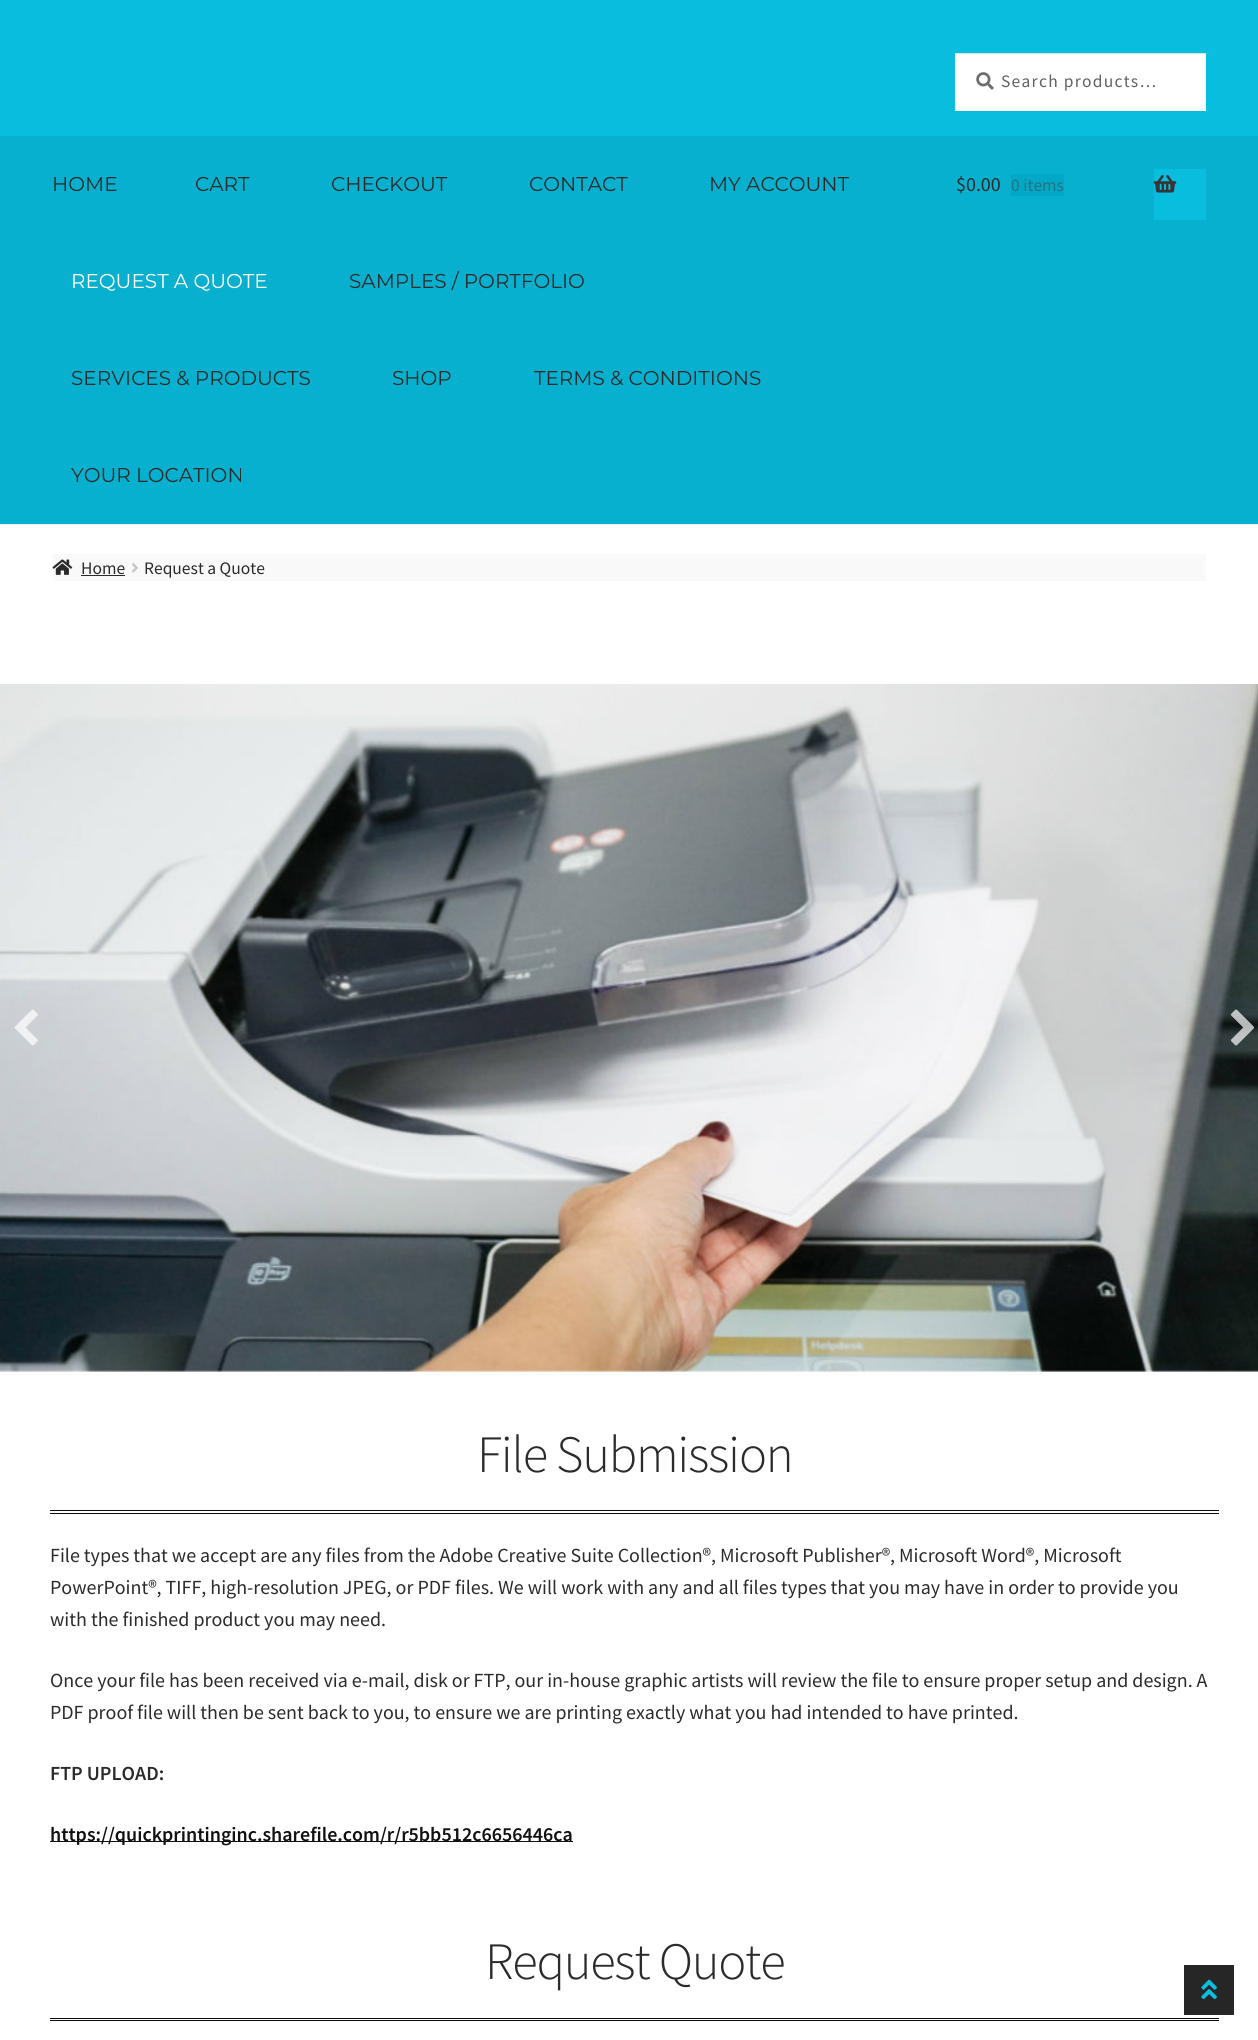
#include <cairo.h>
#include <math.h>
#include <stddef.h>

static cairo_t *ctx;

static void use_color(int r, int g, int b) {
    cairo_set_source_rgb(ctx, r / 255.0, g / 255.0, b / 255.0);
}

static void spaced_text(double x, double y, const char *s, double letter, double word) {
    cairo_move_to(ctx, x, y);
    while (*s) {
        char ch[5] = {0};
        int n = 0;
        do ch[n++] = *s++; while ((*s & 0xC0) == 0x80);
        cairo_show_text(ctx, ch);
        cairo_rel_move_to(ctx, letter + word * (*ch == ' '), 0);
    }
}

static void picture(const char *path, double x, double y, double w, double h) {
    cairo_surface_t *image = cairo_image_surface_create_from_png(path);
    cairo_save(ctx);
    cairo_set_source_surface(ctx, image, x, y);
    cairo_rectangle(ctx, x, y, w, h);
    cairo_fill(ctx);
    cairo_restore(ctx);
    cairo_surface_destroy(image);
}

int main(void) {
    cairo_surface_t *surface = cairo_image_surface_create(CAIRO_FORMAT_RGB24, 1258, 2040);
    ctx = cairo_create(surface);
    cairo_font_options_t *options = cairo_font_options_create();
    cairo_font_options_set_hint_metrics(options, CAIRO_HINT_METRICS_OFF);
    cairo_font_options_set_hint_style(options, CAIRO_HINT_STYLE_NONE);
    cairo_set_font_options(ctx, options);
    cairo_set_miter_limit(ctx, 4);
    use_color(255, 255, 255);
    cairo_paint(ctx);
    use_color(8, 189, 221);
    cairo_rectangle(ctx, 0, 0, 1258, 136);
    cairo_fill(ctx);
    use_color(240, 240, 240);
    cairo_rectangle(ctx, 0, 524, 1258, 1);
    cairo_fill(ctx);
    use_color(255, 255, 255);
    cairo_rectangle(ctx, 955, 54, 251, 57);
    cairo_fill(ctx);
    picture("img1.png", 976, 72, 18, 18);
    use_color(223, 223, 223);
    cairo_rectangle(ctx, 955, 53, 251, 1);
    cairo_fill(ctx);
    cairo_select_font_face(ctx, "Source Sans Pro", CAIRO_FONT_SLANT_NORMAL, CAIRO_FONT_WEIGHT_NORMAL);
    cairo_set_font_size(ctx, 17.5);
    use_color(97, 97, 97);
    spaced_text(1001, 87, "Search products…", 1.25, 0);
    use_color(7, 176, 206);
    cairo_rectangle(ctx, 0, 136, 1258, 388);
    cairo_fill(ctx);
    cairo_select_font_face(ctx, "Montserrat", CAIRO_FONT_SLANT_NORMAL, CAIRO_FONT_WEIGHT_NORMAL);
    cairo_set_font_size(ctx, 20);
    use_color(43, 43, 43);
    cairo_move_to(ctx, 52, 191);
    cairo_show_text(ctx, "HOME");
    cairo_move_to(ctx, 195, 191);
    cairo_show_text(ctx, "CART");
    cairo_move_to(ctx, 331, 191);
    cairo_show_text(ctx, "CHECKOUT");
    cairo_move_to(ctx, 529, 191);
    cairo_show_text(ctx, "CONTACT");
    cairo_move_to(ctx, 709, 191);
    cairo_show_text(ctx, "MY ACCOUNT");
    use_color(255, 255, 255);
    cairo_move_to(ctx, 71, 288);
    cairo_show_text(ctx, "REQUEST A QUOTE");
    use_color(43, 43, 43);
    cairo_move_to(ctx, 349, 288);
    cairo_show_text(ctx, "SAMPLES / PORTFOLIO");
    cairo_move_to(ctx, 71, 385);
    cairo_show_text(ctx, "SERVICES & PRODUCTS");
    cairo_move_to(ctx, 392, 385);
    cairo_show_text(ctx, "SHOP");
    cairo_move_to(ctx, 534, 385);
    cairo_show_text(ctx, "TERMS & CONDITIONS");
    cairo_move_to(ctx, 71, 482);
    cairo_show_text(ctx, "YOUR LOCATION");
    cairo_select_font_face(ctx, "Source Sans Pro", CAIRO_FONT_SLANT_NORMAL, CAIRO_FONT_WEIGHT_NORMAL);
    cairo_move_to(ctx, 956, 191);
    cairo_show_text(ctx, "$0.00");
    use_color(4, 168, 199);
    cairo_rectangle(ctx, 1011, 174, 53, 22);
    cairo_fill(ctx);
    cairo_set_font_size(ctx, 17.5);
    use_color(30, 115, 130);
    cairo_move_to(ctx, 1011, 191);
    cairo_show_text(ctx, "0 items");
    use_color(8, 189, 221);
    cairo_rectangle(ctx, 1154, 169, 52, 51);
    cairo_fill(ctx);
    picture("img2.png", 1153, 175, 24, 18);
    use_color(249, 249, 249);
    cairo_rectangle(ctx, 53, 554, 1153, 27);
    cairo_fill(ctx);
    picture("img3.png", 52, 559, 21, 16);
    use_color(43, 43, 43);
    cairo_move_to(ctx, 81, 574);
    cairo_show_text(ctx, "Home");
    cairo_rectangle(ctx, 81, 575, 44, 1);
    cairo_fill(ctx);
    picture("img4.png", 132, 563, 6, 10);
    cairo_move_to(ctx, 144, 574);
    cairo_show_text(ctx, "Request a Quote");
    picture("img5.png", 0, 684, 1258, 688);
    picture("img6.png", 14, 1009, 24, 37);
    picture("img7.png", 1231, 1009, 23, 37);
    cairo_select_font_face(ctx, "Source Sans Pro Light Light", CAIRO_FONT_SLANT_NORMAL, CAIRO_FONT_WEIGHT_NORMAL);
    cairo_set_font_size(ctx, 52.5);
    spaced_text(477, 1472, "File Submission", -1.25, 0);
    use_color(10, 10, 10);
    cairo_rectangle(ctx, 50, 1510, 1169, 1);
    cairo_fill(ctx);
    cairo_rectangle(ctx, 50, 1513, 1169, 1);
    cairo_fill(ctx);
    cairo_select_font_face(ctx, "Source Sans Pro", CAIRO_FONT_SLANT_NORMAL, CAIRO_FONT_WEIGHT_NORMAL);
    cairo_set_font_size(ctx, 20);
    use_color(43, 43, 43);
    cairo_move_to(ctx, 50, 1562);
    cairo_show_text(ctx, "File types that we accept are any files from the Adobe Creative Suite Collection®, Microsoft Publisher®, Microsoft Word®, Microsoft");
    cairo_move_to(ctx, 50, 1594);
    cairo_show_text(ctx, "PowerPoint®, TIFF, high-resolution JPEG, or PDF files. We will work with any and all files types that you may have in order to provide you");
    cairo_move_to(ctx, 50, 1626);
    cairo_show_text(ctx, "with the finished product you may need.");
    cairo_move_to(ctx, 50, 1687);
    cairo_show_text(ctx, "Once your file has been received via e-mail, disk or FTP, our in-house graphic artists will review the file to ensure proper setup and design. A");
    cairo_move_to(ctx, 50, 1719);
    cairo_show_text(ctx, "PDF proof file will then be sent back to you, to ensure we are printing exactly what you had intended to have printed.");
    cairo_select_font_face(ctx, "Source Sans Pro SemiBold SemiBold", CAIRO_FONT_SLANT_NORMAL, CAIRO_FONT_WEIGHT_NORMAL);
    cairo_move_to(ctx, 50, 1780);
    cairo_show_text(ctx, "FTP UPLOAD:");
    use_color(17, 17, 17);
    cairo_rectangle(ctx, 50, 1841, 523, 1);
    cairo_fill(ctx);
    cairo_move_to(ctx, 50, 1841);
    cairo_show_text(ctx, "https://quickprintinginc.sharefile.com/r/r5bb512c6656446ca");
    cairo_select_font_face(ctx, "Source Sans Pro Light Light", CAIRO_FONT_SLANT_NORMAL, CAIRO_FONT_WEIGHT_NORMAL);
    cairo_set_font_size(ctx, 52.5);
    use_color(43, 43, 43);
    spaced_text(485, 1979, "Request Quote", -1.25, 0);
    use_color(10, 10, 10);
    cairo_rectangle(ctx, 50, 2018, 1169, 1);
    cairo_fill(ctx);
    cairo_rectangle(ctx, 50, 2020, 1169, 1);
    cairo_fill(ctx);
    use_color(38, 38, 38);
    cairo_rectangle(ctx, 1184, 1965, 50, 50);
    cairo_fill(ctx);
    picture("img8.png", 1201, 1979, 16, 21);
    cairo_surface_write_to_png(surface, "result.png");
    cairo_font_options_destroy(options);
    cairo_destroy(ctx);
    cairo_surface_destroy(surface);
    return 0;
}
